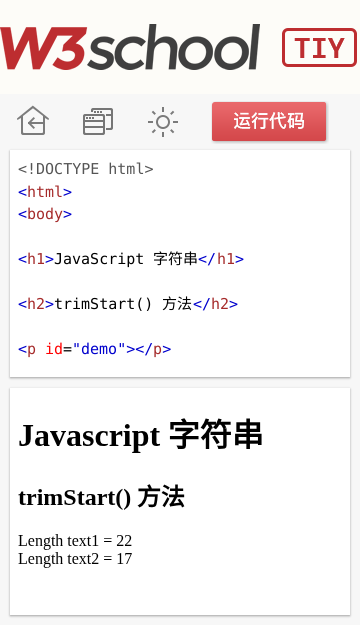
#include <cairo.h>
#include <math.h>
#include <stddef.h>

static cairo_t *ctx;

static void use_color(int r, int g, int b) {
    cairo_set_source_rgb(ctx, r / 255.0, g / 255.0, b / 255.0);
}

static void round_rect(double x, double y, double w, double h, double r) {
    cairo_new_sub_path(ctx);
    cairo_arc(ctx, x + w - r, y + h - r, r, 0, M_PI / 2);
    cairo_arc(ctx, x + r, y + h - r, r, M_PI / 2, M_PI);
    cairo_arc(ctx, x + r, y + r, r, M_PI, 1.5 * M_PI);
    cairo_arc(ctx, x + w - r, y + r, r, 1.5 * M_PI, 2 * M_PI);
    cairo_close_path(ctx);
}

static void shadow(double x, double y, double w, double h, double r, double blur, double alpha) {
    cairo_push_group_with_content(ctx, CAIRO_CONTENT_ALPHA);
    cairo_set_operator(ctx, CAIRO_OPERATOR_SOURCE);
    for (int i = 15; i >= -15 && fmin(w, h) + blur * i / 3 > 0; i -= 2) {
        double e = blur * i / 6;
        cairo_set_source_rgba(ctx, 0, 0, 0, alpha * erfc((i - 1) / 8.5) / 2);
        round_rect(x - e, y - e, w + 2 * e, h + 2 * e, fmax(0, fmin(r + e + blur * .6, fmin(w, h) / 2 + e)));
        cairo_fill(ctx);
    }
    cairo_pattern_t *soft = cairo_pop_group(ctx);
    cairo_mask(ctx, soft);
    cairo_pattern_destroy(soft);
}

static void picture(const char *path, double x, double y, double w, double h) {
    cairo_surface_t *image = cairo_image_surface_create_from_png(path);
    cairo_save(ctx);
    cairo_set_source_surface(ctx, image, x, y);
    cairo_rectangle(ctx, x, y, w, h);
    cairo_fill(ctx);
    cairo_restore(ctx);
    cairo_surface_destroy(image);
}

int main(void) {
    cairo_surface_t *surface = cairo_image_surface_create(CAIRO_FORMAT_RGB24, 360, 625);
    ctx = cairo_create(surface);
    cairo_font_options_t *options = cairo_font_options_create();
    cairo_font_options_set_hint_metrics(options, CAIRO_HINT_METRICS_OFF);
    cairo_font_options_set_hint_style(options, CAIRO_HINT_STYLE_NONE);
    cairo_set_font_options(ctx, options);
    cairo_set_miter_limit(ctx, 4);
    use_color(253, 252, 248);
    cairo_paint(ctx);
    picture("img1.png", 0, 24, 357, 46);
    use_color(247, 247, 247);
    cairo_rectangle(ctx, 0, 94, 360, 531);
    cairo_fill(ctx);
    picture("img2.png", 17, 105, 32, 30);
    picture("img3.png", 83, 108, 30, 27);
    picture("img4.png", 148, 107, 30, 30);
    picture("img5.png", 211, 101, 118, 43);
    use_color(0, 0, 0);
    shadow(10, 151, 340, 227, 0, 1, 0.24);
    shadow(10, 151, 340, 227, 0, 1.5, 0.12);
    use_color(255, 255, 255);
    cairo_rectangle(ctx, 10, 150, 340, 227);
    cairo_fill(ctx);
    cairo_select_font_face(ctx, "DejaVu Sans Mono", CAIRO_FONT_SLANT_NORMAL, CAIRO_FONT_WEIGHT_NORMAL);
    cairo_set_font_size(ctx, 15);
    use_color(85, 85, 85);
    cairo_move_to(ctx, 18, 174);
    cairo_show_text(ctx, "<!DOCTYPE html>");
    use_color(0, 0, 205);
    cairo_move_to(ctx, 18, 197);
    cairo_show_text(ctx, "<");
    use_color(165, 42, 42);
    cairo_move_to(ctx, 27, 197);
    cairo_show_text(ctx, "html");
    use_color(0, 0, 205);
    cairo_move_to(ctx, 63, 197);
    cairo_show_text(ctx, ">");
    cairo_move_to(ctx, 18, 219);
    cairo_show_text(ctx, "<");
    use_color(165, 42, 42);
    cairo_move_to(ctx, 27, 219);
    cairo_show_text(ctx, "body");
    use_color(0, 0, 205);
    cairo_move_to(ctx, 63, 219);
    cairo_show_text(ctx, ">");
    cairo_move_to(ctx, 18, 264);
    cairo_show_text(ctx, "<");
    use_color(165, 42, 42);
    cairo_move_to(ctx, 27, 264);
    cairo_show_text(ctx, "h1");
    use_color(0, 0, 205);
    cairo_move_to(ctx, 45, 264);
    cairo_show_text(ctx, ">");
    use_color(0, 0, 0);
    cairo_move_to(ctx, 54, 264);
    cairo_show_text(ctx, "JavaScript");
    cairo_select_font_face(ctx, "Noto Sans CJK SC", CAIRO_FONT_SLANT_NORMAL, CAIRO_FONT_WEIGHT_NORMAL);
    cairo_move_to(ctx, 153, 264);
    cairo_show_text(ctx, "字符串");
    cairo_select_font_face(ctx, "DejaVu Sans Mono", CAIRO_FONT_SLANT_NORMAL, CAIRO_FONT_WEIGHT_NORMAL);
    use_color(0, 0, 205);
    cairo_move_to(ctx, 198, 264);
    cairo_show_text(ctx, "</");
    use_color(165, 42, 42);
    cairo_move_to(ctx, 217, 264);
    cairo_show_text(ctx, "h1");
    use_color(0, 0, 205);
    cairo_move_to(ctx, 235, 264);
    cairo_show_text(ctx, ">");
    cairo_move_to(ctx, 18, 309);
    cairo_show_text(ctx, "<");
    use_color(165, 42, 42);
    cairo_move_to(ctx, 27, 309);
    cairo_show_text(ctx, "h2");
    use_color(0, 0, 205);
    cairo_move_to(ctx, 45, 309);
    cairo_show_text(ctx, ">");
    use_color(0, 0, 0);
    cairo_move_to(ctx, 54, 309);
    cairo_show_text(ctx, "trimStart()");
    cairo_select_font_face(ctx, "Noto Sans CJK SC", CAIRO_FONT_SLANT_NORMAL, CAIRO_FONT_WEIGHT_NORMAL);
    cairo_move_to(ctx, 162, 309);
    cairo_show_text(ctx, "方法");
    cairo_select_font_face(ctx, "DejaVu Sans Mono", CAIRO_FONT_SLANT_NORMAL, CAIRO_FONT_WEIGHT_NORMAL);
    use_color(0, 0, 205);
    cairo_move_to(ctx, 193, 309);
    cairo_show_text(ctx, "</");
    use_color(165, 42, 42);
    cairo_move_to(ctx, 211, 309);
    cairo_show_text(ctx, "h2");
    use_color(0, 0, 205);
    cairo_move_to(ctx, 229, 309);
    cairo_show_text(ctx, ">");
    cairo_move_to(ctx, 18, 354);
    cairo_show_text(ctx, "<");
    use_color(165, 42, 42);
    cairo_move_to(ctx, 27, 354);
    cairo_show_text(ctx, "p");
    use_color(255, 0, 0);
    cairo_move_to(ctx, 45, 354);
    cairo_show_text(ctx, "id");
    use_color(0, 0, 205);
    cairo_move_to(ctx, 72, 354);
    cairo_show_text(ctx, "\"demo\"></ >");
    use_color(0, 0, 0);
    cairo_move_to(ctx, 63, 354);
    cairo_show_text(ctx, "=");
    use_color(165, 42, 42);
    cairo_move_to(ctx, 153, 354);
    cairo_show_text(ctx, "p");
    use_color(0, 0, 0);
    shadow(10, 389, 340, 227, 0, 1, 0.24);
    shadow(10, 389, 340, 227, 0, 1.5, 0.12);
    use_color(255, 255, 255);
    cairo_rectangle(ctx, 10, 388, 340, 227);
    cairo_fill(ctx);
    picture("img6.png", 18, 418, 244, 150);
    cairo_surface_write_to_png(surface, "result.png");
    cairo_font_options_destroy(options);
    cairo_destroy(ctx);
    cairo_surface_destroy(surface);
    return 0;
}
